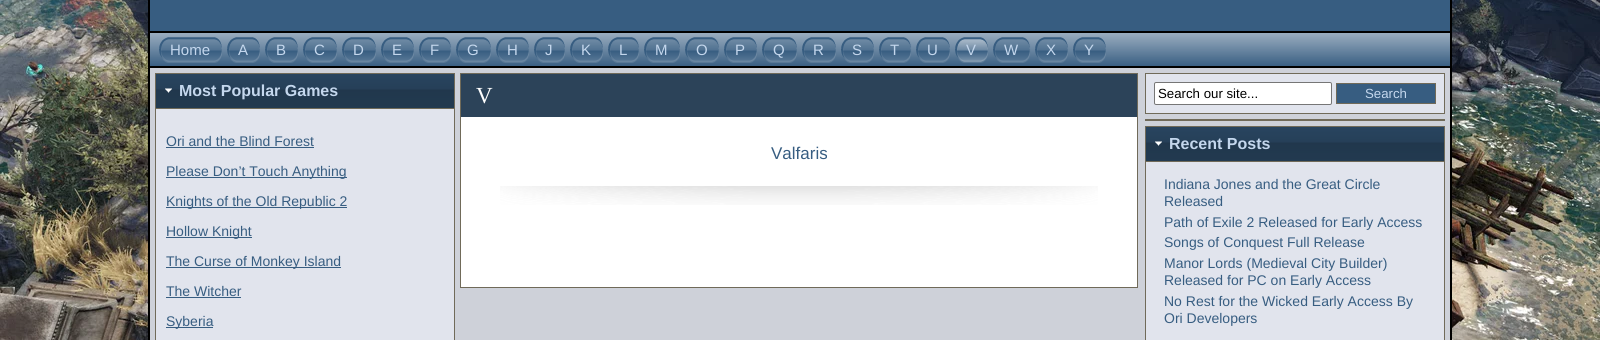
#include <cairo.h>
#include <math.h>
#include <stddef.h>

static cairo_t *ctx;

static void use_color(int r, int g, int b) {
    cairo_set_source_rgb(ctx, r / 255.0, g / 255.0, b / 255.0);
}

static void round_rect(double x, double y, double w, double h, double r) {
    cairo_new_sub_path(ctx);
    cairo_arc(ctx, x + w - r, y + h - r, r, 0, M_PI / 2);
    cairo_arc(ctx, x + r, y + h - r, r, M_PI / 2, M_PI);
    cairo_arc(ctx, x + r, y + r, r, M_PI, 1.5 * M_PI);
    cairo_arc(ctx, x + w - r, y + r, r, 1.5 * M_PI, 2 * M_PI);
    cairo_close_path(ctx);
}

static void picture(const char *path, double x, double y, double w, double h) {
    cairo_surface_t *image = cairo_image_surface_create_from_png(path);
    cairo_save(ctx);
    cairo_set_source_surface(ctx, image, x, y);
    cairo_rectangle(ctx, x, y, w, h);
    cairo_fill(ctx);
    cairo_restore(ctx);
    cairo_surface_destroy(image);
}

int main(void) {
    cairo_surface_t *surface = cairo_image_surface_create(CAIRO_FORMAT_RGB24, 1600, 340);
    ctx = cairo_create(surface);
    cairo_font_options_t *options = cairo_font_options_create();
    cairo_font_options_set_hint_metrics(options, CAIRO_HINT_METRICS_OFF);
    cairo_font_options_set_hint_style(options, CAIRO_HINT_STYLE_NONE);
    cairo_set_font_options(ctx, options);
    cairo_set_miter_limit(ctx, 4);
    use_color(255, 255, 255);
    cairo_paint(ctx);
    picture("img1.png", 0, 0, 1600, 340);
    cairo_rectangle(ctx, 149, -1, 1302, 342);
    use_color(0, 0, 0);
    cairo_stroke(ctx);
    use_color(55, 93, 129);
    cairo_rectangle(ctx, 150, 0, 1300, 31);
    cairo_fill(ctx);
    use_color(0, 0, 0);
    cairo_rectangle(ctx, 150, 31, 1300, 2);
    cairo_fill(ctx);
    use_color(55, 93, 129);
    cairo_rectangle(ctx, 150, 33, 1300, 33);
    cairo_fill(ctx);
    picture("img2.png", 150, 33, 1300, 33);
    use_color(0, 0, 0);
    cairo_rectangle(ctx, 150, 66, 1300, 2);
    cairo_fill(ctx);
    use_color(55, 93, 129);
    cairo_rectangle(ctx, 158, 33, 65, 33);
    cairo_fill(ctx);
    picture("img3.png", 158, 33, 11, 33);
    picture("img4.png", 169, 33, 54, 33);
    cairo_select_font_face(ctx, "Liberation Sans", CAIRO_FONT_SLANT_NORMAL, CAIRO_FONT_WEIGHT_NORMAL);
    cairo_set_font_size(ctx, 15);
    use_color(196, 215, 237);
    cairo_move_to(ctx, 170, 55);
    cairo_show_text(ctx, "Home");
    use_color(55, 93, 129);
    cairo_rectangle(ctx, 226, 33, 35, 33);
    cairo_fill(ctx);
    picture("img3.png", 226, 33, 11, 33);
    picture("img5.png", 237, 33, 24, 33);
    use_color(196, 215, 237);
    cairo_move_to(ctx, 238, 55);
    cairo_show_text(ctx, "A");
    use_color(55, 93, 129);
    cairo_rectangle(ctx, 264, 33, 35, 33);
    cairo_fill(ctx);
    picture("img3.png", 264, 33, 11, 33);
    picture("img5.png", 275, 33, 24, 33);
    use_color(196, 215, 237);
    cairo_move_to(ctx, 276, 55);
    cairo_show_text(ctx, "B");
    use_color(55, 93, 129);
    cairo_rectangle(ctx, 302, 33, 36, 33);
    cairo_fill(ctx);
    picture("img3.png", 302, 33, 11, 33);
    picture("img6.png", 313, 33, 25, 33);
    use_color(196, 215, 237);
    cairo_move_to(ctx, 314, 55);
    cairo_show_text(ctx, "C");
    use_color(55, 93, 129);
    cairo_rectangle(ctx, 341, 33, 36, 33);
    cairo_fill(ctx);
    picture("img3.png", 341, 33, 11, 33);
    picture("img6.png", 352, 33, 25, 33);
    use_color(196, 215, 237);
    cairo_move_to(ctx, 353, 55);
    cairo_show_text(ctx, "D");
    use_color(55, 93, 129);
    cairo_rectangle(ctx, 380, 33, 35, 33);
    cairo_fill(ctx);
    picture("img3.png", 380, 33, 11, 33);
    picture("img5.png", 391, 33, 24, 33);
    use_color(196, 215, 237);
    cairo_move_to(ctx, 392, 55);
    cairo_show_text(ctx, "E");
    use_color(55, 93, 129);
    cairo_rectangle(ctx, 418, 33, 34, 33);
    cairo_fill(ctx);
    picture("img3.png", 418, 33, 11, 33);
    picture("img7.png", 429, 33, 23, 33);
    use_color(196, 215, 237);
    cairo_move_to(ctx, 430, 55);
    cairo_show_text(ctx, "F");
    use_color(55, 93, 129);
    cairo_rectangle(ctx, 455, 33, 37, 33);
    cairo_fill(ctx);
    picture("img3.png", 455, 33, 11, 33);
    picture("img8.png", 466, 33, 26, 33);
    use_color(196, 215, 237);
    cairo_move_to(ctx, 467, 55);
    cairo_show_text(ctx, "G");
    use_color(55, 93, 129);
    cairo_rectangle(ctx, 495, 33, 35, 33);
    cairo_fill(ctx);
    picture("img3.png", 495, 33, 11, 33);
    picture("img9.png", 506, 33, 24, 33);
    use_color(196, 215, 237);
    cairo_move_to(ctx, 507, 55);
    cairo_show_text(ctx, "H");
    use_color(55, 93, 129);
    cairo_rectangle(ctx, 533, 33, 33, 33);
    cairo_fill(ctx);
    picture("img3.png", 533, 33, 11, 33);
    picture("img10.png", 544, 33, 22, 33);
    use_color(196, 215, 237);
    cairo_move_to(ctx, 545, 55);
    cairo_show_text(ctx, "J");
    use_color(55, 93, 129);
    cairo_rectangle(ctx, 569, 33, 35, 33);
    cairo_fill(ctx);
    picture("img3.png", 569, 33, 11, 33);
    picture("img5.png", 580, 33, 24, 33);
    use_color(196, 215, 237);
    cairo_move_to(ctx, 581, 55);
    cairo_show_text(ctx, "K");
    use_color(55, 93, 129);
    cairo_rectangle(ctx, 607, 33, 33, 33);
    cairo_fill(ctx);
    picture("img3.png", 607, 33, 11, 33);
    picture("img11.png", 618, 33, 22, 33);
    use_color(196, 215, 237);
    cairo_move_to(ctx, 619, 55);
    cairo_show_text(ctx, "L");
    use_color(55, 93, 129);
    cairo_rectangle(ctx, 643, 33, 38, 33);
    cairo_fill(ctx);
    picture("img3.png", 643, 33, 11, 33);
    picture("img12.png", 654, 33, 27, 33);
    use_color(196, 215, 237);
    cairo_move_to(ctx, 655, 55);
    cairo_show_text(ctx, "M");
    use_color(55, 93, 129);
    cairo_rectangle(ctx, 684, 33, 36, 33);
    cairo_fill(ctx);
    picture("img3.png", 684, 33, 11, 33);
    picture("img13.png", 695, 33, 25, 33);
    use_color(196, 215, 237);
    cairo_move_to(ctx, 696, 55);
    cairo_show_text(ctx, "O");
    use_color(55, 93, 129);
    cairo_rectangle(ctx, 723, 33, 35, 33);
    cairo_fill(ctx);
    picture("img3.png", 723, 33, 11, 33);
    picture("img5.png", 734, 33, 24, 33);
    use_color(196, 215, 237);
    cairo_move_to(ctx, 735, 55);
    cairo_show_text(ctx, "P");
    use_color(55, 93, 129);
    cairo_rectangle(ctx, 761, 33, 37, 33);
    cairo_fill(ctx);
    picture("img3.png", 761, 33, 11, 33);
    picture("img8.png", 772, 33, 26, 33);
    use_color(196, 215, 237);
    cairo_move_to(ctx, 773, 55);
    cairo_show_text(ctx, "Q");
    use_color(55, 93, 129);
    cairo_rectangle(ctx, 801, 33, 36, 33);
    cairo_fill(ctx);
    picture("img3.png", 801, 33, 11, 33);
    picture("img6.png", 812, 33, 25, 33);
    use_color(196, 215, 237);
    cairo_move_to(ctx, 813, 55);
    cairo_show_text(ctx, "R");
    use_color(55, 93, 129);
    cairo_rectangle(ctx, 840, 33, 35, 33);
    cairo_fill(ctx);
    picture("img3.png", 840, 33, 11, 33);
    picture("img5.png", 851, 33, 24, 33);
    use_color(196, 215, 237);
    cairo_move_to(ctx, 852, 55);
    cairo_show_text(ctx, "S");
    use_color(55, 93, 129);
    cairo_rectangle(ctx, 878, 33, 34, 33);
    cairo_fill(ctx);
    picture("img3.png", 878, 33, 11, 33);
    picture("img7.png", 889, 33, 23, 33);
    use_color(196, 215, 237);
    cairo_move_to(ctx, 890, 55);
    cairo_show_text(ctx, "T");
    use_color(55, 93, 129);
    cairo_rectangle(ctx, 915, 33, 36, 33);
    cairo_fill(ctx);
    picture("img3.png", 915, 33, 11, 33);
    picture("img6.png", 926, 33, 25, 33);
    use_color(196, 215, 237);
    cairo_move_to(ctx, 927, 55);
    cairo_show_text(ctx, "U");
    use_color(55, 93, 129);
    cairo_rectangle(ctx, 954, 33, 35, 33);
    cairo_fill(ctx);
    picture("img14.png", 954, 33, 11, 33);
    picture("img15.png", 965, 33, 24, 33);
    use_color(196, 215, 237);
    cairo_move_to(ctx, 966, 55);
    cairo_show_text(ctx, "V");
    use_color(55, 93, 129);
    cairo_rectangle(ctx, 992, 33, 39, 33);
    cairo_fill(ctx);
    picture("img3.png", 992, 33, 11, 33);
    picture("img16.png", 1003, 33, 28, 33);
    use_color(196, 215, 237);
    cairo_move_to(ctx, 1004, 55);
    cairo_show_text(ctx, "W");
    use_color(55, 93, 129);
    cairo_rectangle(ctx, 1034, 33, 35, 33);
    cairo_fill(ctx);
    picture("img3.png", 1034, 33, 11, 33);
    picture("img5.png", 1045, 33, 24, 33);
    use_color(196, 215, 237);
    cairo_move_to(ctx, 1046, 55);
    cairo_show_text(ctx, "X");
    use_color(55, 93, 129);
    cairo_rectangle(ctx, 1072, 33, 35, 33);
    cairo_fill(ctx);
    picture("img3.png", 1072, 33, 11, 33);
    picture("img5.png", 1083, 33, 24, 33);
    use_color(196, 215, 237);
    cairo_move_to(ctx, 1084, 55);
    cairo_show_text(ctx, "Y");
    use_color(206, 209, 217);
    cairo_rectangle(ctx, 150, 68, 1300, 272);
    cairo_fill(ctx);
    use_color(225, 228, 237);
    cairo_rectangle(ctx, 156, 109, 298, 231);
    cairo_fill(ctx);
    cairo_rectangle(ctx, 155.5, 73.5, 299, 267);
    use_color(112, 106, 89);
    cairo_set_line_width(ctx, 1);
    cairo_stroke(ctx);
    use_color(55, 93, 129);
    cairo_rectangle(ctx, 156, 74, 298, 34);
    cairo_fill(ctx);
    picture("img17.png", 156, 74, 298, 34);
    use_color(112, 106, 89);
    cairo_rectangle(ctx, 156, 108, 298, 1);
    cairo_fill(ctx);
    cairo_select_font_face(ctx, "Liberation Sans", CAIRO_FONT_SLANT_NORMAL, CAIRO_FONT_WEIGHT_BOLD);
    cairo_set_font_size(ctx, 16);
    use_color(196, 215, 237);
    cairo_move_to(ctx, 179, 96);
    cairo_show_text(ctx, "Most Popular Games");
    cairo_select_font_face(ctx, "Liberation Sans", CAIRO_FONT_SLANT_NORMAL, CAIRO_FONT_WEIGHT_NORMAL);
    cairo_set_font_size(ctx, 14);
    use_color(55, 93, 129);
    cairo_move_to(ctx, 166, 146);
    cairo_show_text(ctx, "Ori and the Blind Forest");
    cairo_rectangle(ctx, 166, 147, 148, 1);
    cairo_fill(ctx);
    cairo_rectangle(ctx, 166, 177, 181, 1);
    cairo_fill(ctx);
    cairo_move_to(ctx, 166, 176);
    cairo_show_text(ctx, "Please Don’t Touch Anything");
    cairo_rectangle(ctx, 166, 207, 181, 1);
    cairo_fill(ctx);
    cairo_move_to(ctx, 166, 206);
    cairo_show_text(ctx, "Knights of the Old Republic 2");
    cairo_rectangle(ctx, 166, 237, 86, 1);
    cairo_fill(ctx);
    cairo_move_to(ctx, 166, 236);
    cairo_show_text(ctx, "Hollow Knight");
    cairo_rectangle(ctx, 166, 267, 175, 1);
    cairo_fill(ctx);
    cairo_move_to(ctx, 166, 266);
    cairo_show_text(ctx, "The Curse of Monkey Island");
    cairo_move_to(ctx, 166, 296);
    cairo_show_text(ctx, "The Witcher");
    cairo_rectangle(ctx, 166, 297, 75, 1);
    cairo_fill(ctx);
    cairo_rectangle(ctx, 166, 327, 47, 1);
    cairo_fill(ctx);
    cairo_move_to(ctx, 166, 326);
    cairo_show_text(ctx, "Syberia");
    use_color(255, 255, 255);
    cairo_rectangle(ctx, 461, 117, 676, 170);
    cairo_fill(ctx);
    cairo_rectangle(ctx, 460.5, 73.5, 677, 214);
    use_color(112, 106, 89);
    cairo_stroke(ctx);
    use_color(44, 67, 89);
    cairo_rectangle(ctx, 461, 74, 676, 43);
    cairo_fill(ctx);
    cairo_select_font_face(ctx, "Liberation Serif", CAIRO_FONT_SLANT_NORMAL, CAIRO_FONT_WEIGHT_NORMAL);
    cairo_set_font_size(ctx, 23);
    use_color(255, 255, 255);
    cairo_move_to(ctx, 476, 103);
    cairo_show_text(ctx, "V");
    cairo_select_font_face(ctx, "Liberation Sans", CAIRO_FONT_SLANT_NORMAL, CAIRO_FONT_WEIGHT_NORMAL);
    cairo_set_font_size(ctx, 17);
    use_color(55, 93, 129);
    cairo_move_to(ctx, 771, 159);
    cairo_show_text(ctx, "Valfaris");
    picture("img18.png", 500, 186, 598, 19);
    use_color(225, 228, 237);
    cairo_rectangle(ctx, 1145.5, 73.5, 299, 40);
    cairo_fill_preserve(ctx);
    use_color(112, 106, 89);
    cairo_stroke(ctx);
    use_color(255, 255, 255);
    round_rect(1154.5, 82.5, 177, 22, 1.5);
    cairo_fill_preserve(ctx);
    use_color(118, 118, 118);
    cairo_stroke(ctx);
    cairo_set_font_size(ctx, 13.25);
    use_color(0, 0, 0);
    cairo_move_to(ctx, 1158, 98);
    cairo_show_text(ctx, "Search our site...");
    use_color(55, 93, 129);
    cairo_rectangle(ctx, 1336.5, 83.5, 99, 20);
    cairo_fill_preserve(ctx);
    use_color(112, 106, 89);
    cairo_stroke(ctx);
    use_color(196, 215, 237);
    cairo_move_to(ctx, 1365, 98);
    cairo_show_text(ctx, "Search");
    use_color(112, 106, 89);
    cairo_rectangle(ctx, 1145, 119, 300, 2);
    cairo_fill(ctx);
    use_color(225, 228, 237);
    cairo_rectangle(ctx, 1146, 162, 298, 178);
    cairo_fill(ctx);
    cairo_rectangle(ctx, 1145.5, 126.5, 299, 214);
    use_color(112, 106, 89);
    cairo_stroke(ctx);
    use_color(55, 93, 129);
    cairo_rectangle(ctx, 1146, 127, 298, 34);
    cairo_fill(ctx);
    picture("img17.png", 1146, 127, 298, 34);
    use_color(112, 106, 89);
    cairo_rectangle(ctx, 1146, 161, 298, 1);
    cairo_fill(ctx);
    cairo_select_font_face(ctx, "Liberation Sans", CAIRO_FONT_SLANT_NORMAL, CAIRO_FONT_WEIGHT_BOLD);
    cairo_set_font_size(ctx, 16);
    use_color(196, 215, 237);
    cairo_move_to(ctx, 1169, 149);
    cairo_show_text(ctx, "Recent Posts");
    cairo_select_font_face(ctx, "Liberation Sans", CAIRO_FONT_SLANT_NORMAL, CAIRO_FONT_WEIGHT_NORMAL);
    cairo_set_font_size(ctx, 14);
    use_color(55, 93, 129);
    cairo_move_to(ctx, 1164, 189);
    cairo_show_text(ctx, "Indiana Jones and the Great Circle");
    cairo_move_to(ctx, 1164, 206);
    cairo_show_text(ctx, "Released");
    cairo_move_to(ctx, 1164, 227);
    cairo_show_text(ctx, "Path of Exile 2 Released for Early Access");
    cairo_move_to(ctx, 1164, 247);
    cairo_show_text(ctx, "Songs of Conquest Full Release");
    cairo_move_to(ctx, 1164, 268);
    cairo_show_text(ctx, "Manor Lords (Medieval City Builder)");
    cairo_move_to(ctx, 1164, 285);
    cairo_show_text(ctx, "Released for PC on Early Access");
    cairo_move_to(ctx, 1164, 306);
    cairo_show_text(ctx, "No Rest for the Wicked Early Access By");
    cairo_move_to(ctx, 1164, 323);
    cairo_show_text(ctx, "Ori Developers");
    cairo_surface_write_to_png(surface, "result.png");
    cairo_font_options_destroy(options);
    cairo_destroy(ctx);
    cairo_surface_destroy(surface);
    return 0;
}
